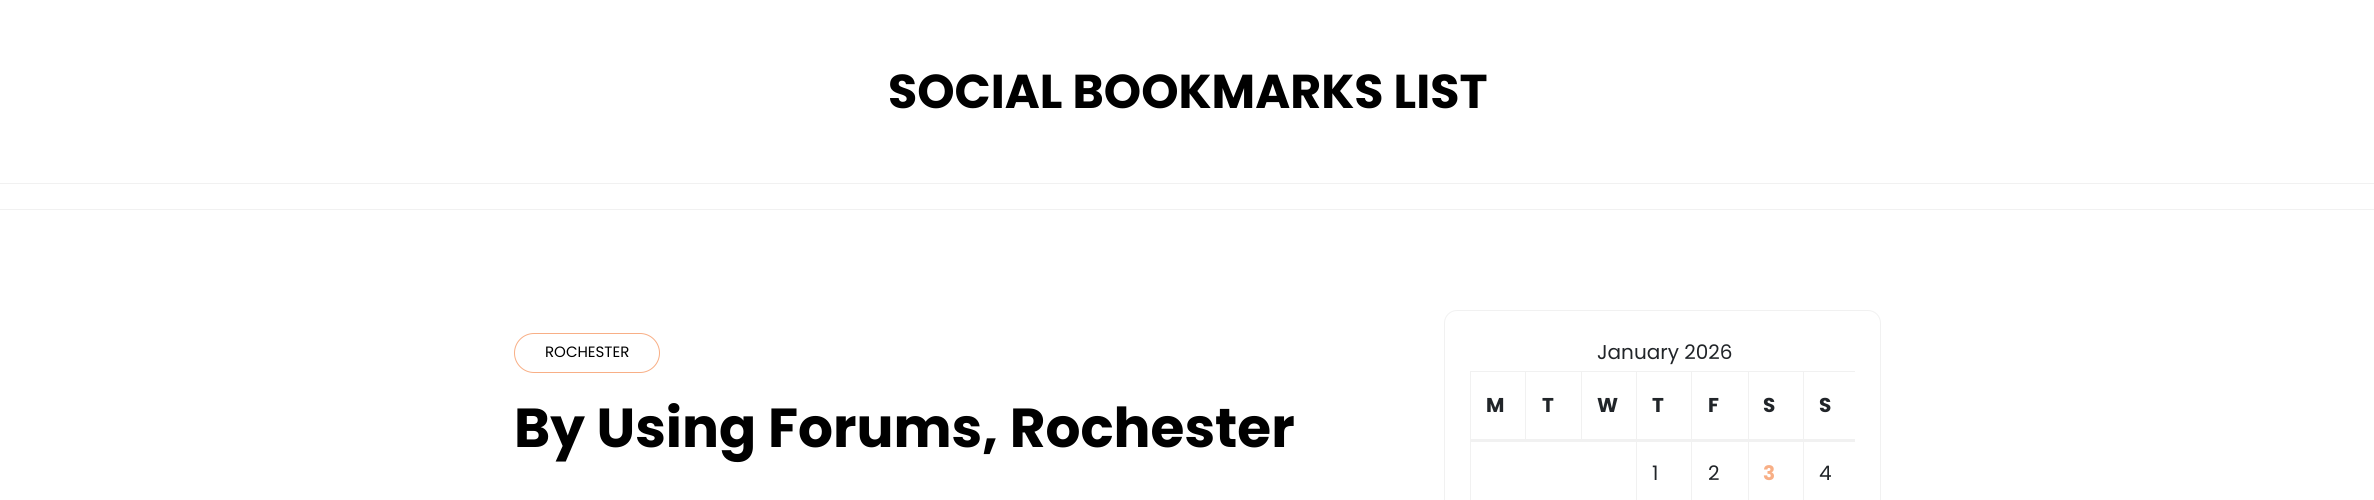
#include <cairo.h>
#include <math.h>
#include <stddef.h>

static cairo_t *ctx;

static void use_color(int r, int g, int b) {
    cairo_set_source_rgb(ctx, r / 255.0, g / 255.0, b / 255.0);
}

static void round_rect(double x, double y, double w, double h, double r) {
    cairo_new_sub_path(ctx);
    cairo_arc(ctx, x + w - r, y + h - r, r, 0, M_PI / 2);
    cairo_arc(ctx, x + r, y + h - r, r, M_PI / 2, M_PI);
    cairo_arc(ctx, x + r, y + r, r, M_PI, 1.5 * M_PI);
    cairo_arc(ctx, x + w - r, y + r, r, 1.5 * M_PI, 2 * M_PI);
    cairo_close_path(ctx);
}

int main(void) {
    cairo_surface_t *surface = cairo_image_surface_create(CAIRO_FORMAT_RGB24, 2374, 500);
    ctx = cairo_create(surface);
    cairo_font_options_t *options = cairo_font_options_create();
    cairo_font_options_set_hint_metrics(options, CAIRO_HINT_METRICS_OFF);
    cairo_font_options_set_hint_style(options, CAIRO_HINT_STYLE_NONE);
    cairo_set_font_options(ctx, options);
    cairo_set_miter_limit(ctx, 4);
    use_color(255, 255, 255);
    cairo_paint(ctx);
    cairo_select_font_face(ctx, "Poppins", CAIRO_FONT_SLANT_NORMAL, CAIRO_FONT_WEIGHT_BOLD);
    cairo_set_font_size(ctx, 47.5);
    use_color(0, 0, 0);
    cairo_move_to(ctx, 888, 108);
    cairo_show_text(ctx, "SOCIAL BOOKMARKS LIST");
    use_color(241, 241, 241);
    cairo_rectangle(ctx, 0, 183, 2374, 1);
    cairo_fill(ctx);
    cairo_rectangle(ctx, 0, 209, 2374, 1);
    cairo_fill(ctx);
    round_rect(514.5, 333.5, 145, 39, 19.5);
    use_color(248, 175, 134);
    cairo_set_line_width(ctx, 1);
    cairo_stroke(ctx);
    cairo_select_font_face(ctx, "Poppins", CAIRO_FONT_SLANT_NORMAL, CAIRO_FONT_WEIGHT_NORMAL);
    cairo_set_font_size(ctx, 15);
    use_color(0, 0, 0);
    cairo_move_to(ctx, 545, 357);
    cairo_show_text(ctx, "ROCHESTER");
    cairo_select_font_face(ctx, "Poppins", CAIRO_FONT_SLANT_NORMAL, CAIRO_FONT_WEIGHT_BOLD);
    cairo_set_font_size(ctx, 54.9);
    cairo_move_to(ctx, 514, 447);
    cairo_show_text(ctx, "By Using Forums, Rochester");
    round_rect(1444.5, 310.5, 436, 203, 12.5);
    use_color(241, 241, 241);
    cairo_stroke(ctx);
    cairo_select_font_face(ctx, "Poppins", CAIRO_FONT_SLANT_NORMAL, CAIRO_FONT_WEIGHT_NORMAL);
    cairo_set_font_size(ctx, 20);
    use_color(33, 37, 41);
    cairo_move_to(ctx, 1597, 359);
    cairo_show_text(ctx, "January 2026");
    use_color(241, 241, 241);
    cairo_rectangle(ctx, 1803, 371, 52, 1);
    cairo_fill(ctx);
    cairo_rectangle(ctx, 1803, 440, 1, 60);
    cairo_fill(ctx);
    cairo_rectangle(ctx, 1803, 371, 1, 70);
    cairo_fill(ctx);
    cairo_rectangle(ctx, 1748, 371, 56, 1);
    cairo_fill(ctx);
    cairo_rectangle(ctx, 1748, 440, 1, 60);
    cairo_fill(ctx);
    cairo_rectangle(ctx, 1748, 371, 1, 70);
    cairo_fill(ctx);
    cairo_rectangle(ctx, 1691, 371, 58, 1);
    cairo_fill(ctx);
    cairo_rectangle(ctx, 1691, 440, 1, 60);
    cairo_fill(ctx);
    cairo_rectangle(ctx, 1691, 371, 1, 70);
    cairo_fill(ctx);
    cairo_rectangle(ctx, 1636, 371, 57, 1);
    cairo_fill(ctx);
    cairo_rectangle(ctx, 1636, 440, 1, 60);
    cairo_fill(ctx);
    cairo_rectangle(ctx, 1636, 371, 1, 70);
    cairo_fill(ctx);
    cairo_rectangle(ctx, 1581, 371, 57, 1);
    cairo_fill(ctx);
    cairo_rectangle(ctx, 1581, 371, 1, 70);
    cairo_fill(ctx);
    cairo_rectangle(ctx, 1525, 371, 58, 1);
    cairo_fill(ctx);
    cairo_rectangle(ctx, 1525, 371, 1, 70);
    cairo_fill(ctx);
    cairo_rectangle(ctx, 1470, 371, 56, 1);
    cairo_fill(ctx);
    cairo_rectangle(ctx, 1470, 440, 1, 60);
    cairo_fill(ctx);
    cairo_rectangle(ctx, 1470, 371, 1, 70);
    cairo_fill(ctx);
    cairo_select_font_face(ctx, "Poppins", CAIRO_FONT_SLANT_NORMAL, CAIRO_FONT_WEIGHT_BOLD);
    use_color(33, 37, 41);
    cairo_move_to(ctx, 1486, 412);
    cairo_show_text(ctx, "M");
    cairo_move_to(ctx, 1542, 412);
    cairo_show_text(ctx, "T");
    cairo_move_to(ctx, 1597, 412);
    cairo_show_text(ctx, "W");
    cairo_move_to(ctx, 1652, 412);
    cairo_show_text(ctx, "T");
    cairo_move_to(ctx, 1708, 412);
    cairo_show_text(ctx, "F");
    cairo_move_to(ctx, 1763, 412);
    cairo_show_text(ctx, "S");
    use_color(241, 241, 241);
    cairo_rectangle(ctx, 1470, 439, 385, 3);
    cairo_fill(ctx);
    use_color(33, 37, 41);
    cairo_move_to(ctx, 1819, 412);
    cairo_show_text(ctx, "S");
    cairo_select_font_face(ctx, "Poppins", CAIRO_FONT_SLANT_NORMAL, CAIRO_FONT_WEIGHT_NORMAL);
    cairo_move_to(ctx, 1652, 480);
    cairo_show_text(ctx, "1");
    cairo_move_to(ctx, 1708, 480);
    cairo_show_text(ctx, "2");
    cairo_select_font_face(ctx, "Poppins", CAIRO_FONT_SLANT_NORMAL, CAIRO_FONT_WEIGHT_BOLD);
    use_color(248, 175, 134);
    cairo_move_to(ctx, 1763, 480);
    cairo_show_text(ctx, "3");
    cairo_select_font_face(ctx, "Poppins", CAIRO_FONT_SLANT_NORMAL, CAIRO_FONT_WEIGHT_NORMAL);
    use_color(33, 37, 41);
    cairo_move_to(ctx, 1819, 480);
    cairo_show_text(ctx, "4");
    cairo_surface_write_to_png(surface, "result.png");
    cairo_font_options_destroy(options);
    cairo_destroy(ctx);
    cairo_surface_destroy(surface);
    return 0;
}
